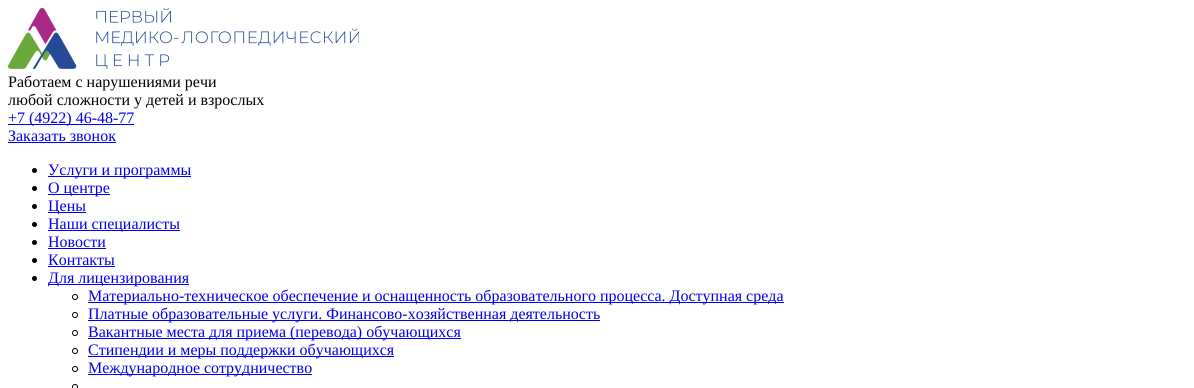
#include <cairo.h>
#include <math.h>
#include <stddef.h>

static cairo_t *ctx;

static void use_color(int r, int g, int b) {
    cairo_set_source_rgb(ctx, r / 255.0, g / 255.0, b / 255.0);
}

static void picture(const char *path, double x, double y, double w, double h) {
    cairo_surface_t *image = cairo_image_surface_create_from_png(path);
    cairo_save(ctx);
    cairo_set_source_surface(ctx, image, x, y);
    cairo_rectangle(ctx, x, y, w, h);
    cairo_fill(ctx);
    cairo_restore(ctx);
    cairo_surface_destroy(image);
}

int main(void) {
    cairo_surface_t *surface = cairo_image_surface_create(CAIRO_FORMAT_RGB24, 1194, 388);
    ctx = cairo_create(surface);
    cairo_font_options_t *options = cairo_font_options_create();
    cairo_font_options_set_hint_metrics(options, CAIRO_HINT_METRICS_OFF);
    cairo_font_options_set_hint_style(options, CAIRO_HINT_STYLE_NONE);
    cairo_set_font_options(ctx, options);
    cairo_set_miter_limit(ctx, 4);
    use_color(255, 255, 255);
    cairo_paint(ctx);
    picture("img1.png", 8, 8, 351, 61);
    cairo_select_font_face(ctx, "Liberation Serif", CAIRO_FONT_SLANT_NORMAL, CAIRO_FONT_WEIGHT_NORMAL);
    cairo_set_font_size(ctx, 16);
    use_color(0, 0, 0);
    cairo_move_to(ctx, 8, 87);
    cairo_show_text(ctx, "Работаем с нарушениями речи");
    cairo_move_to(ctx, 8, 105);
    cairo_show_text(ctx, "любой сложности у детей и взрослых");
    use_color(0, 0, 238);
    cairo_rectangle(ctx, 8, 124, 126, 1);
    cairo_fill(ctx);
    cairo_move_to(ctx, 8, 123);
    cairo_show_text(ctx, "+7 (4922) 46-48-77");
    cairo_move_to(ctx, 8, 141);
    cairo_show_text(ctx, "Заказать звонок");
    cairo_rectangle(ctx, 8, 142, 108, 1);
    cairo_fill(ctx);
    use_color(0, 0, 0);
    cairo_arc(ctx, 34.5, 170.5, 2.5, 0, 2 * M_PI);
    cairo_fill(ctx);
    use_color(0, 0, 238);
    cairo_rectangle(ctx, 48, 176, 143, 1);
    cairo_fill(ctx);
    cairo_move_to(ctx, 48, 175);
    cairo_show_text(ctx, "Услуги и программы");
    use_color(0, 0, 0);
    cairo_new_path(ctx);
    cairo_arc(ctx, 34.5, 188.5, 2.5, 0, 2 * M_PI);
    cairo_fill(ctx);
    use_color(0, 0, 238);
    cairo_rectangle(ctx, 48, 194, 62, 1);
    cairo_fill(ctx);
    cairo_move_to(ctx, 48, 193);
    cairo_show_text(ctx, "О центре");
    use_color(0, 0, 0);
    cairo_new_path(ctx);
    cairo_arc(ctx, 34.5, 206.5, 2.5, 0, 2 * M_PI);
    cairo_fill(ctx);
    use_color(0, 0, 238);
    cairo_rectangle(ctx, 48, 212, 38, 1);
    cairo_fill(ctx);
    cairo_move_to(ctx, 48, 211);
    cairo_show_text(ctx, "Цены");
    use_color(0, 0, 0);
    cairo_new_path(ctx);
    cairo_arc(ctx, 34.5, 224.5, 2.5, 0, 2 * M_PI);
    cairo_fill(ctx);
    use_color(0, 0, 238);
    cairo_rectangle(ctx, 48, 230, 132, 1);
    cairo_fill(ctx);
    cairo_move_to(ctx, 48, 229);
    cairo_show_text(ctx, "Наши специалисты");
    use_color(0, 0, 0);
    cairo_new_path(ctx);
    cairo_arc(ctx, 34.5, 242.5, 2.5, 0, 2 * M_PI);
    cairo_fill(ctx);
    use_color(0, 0, 238);
    cairo_move_to(ctx, 48, 247);
    cairo_show_text(ctx, "Новости");
    cairo_rectangle(ctx, 48, 248, 58, 1);
    cairo_fill(ctx);
    use_color(0, 0, 0);
    cairo_arc(ctx, 34.5, 260.5, 2.5, 0, 2 * M_PI);
    cairo_fill(ctx);
    use_color(0, 0, 238);
    cairo_move_to(ctx, 48, 265);
    cairo_show_text(ctx, "Контакты");
    cairo_rectangle(ctx, 48, 266, 67, 1);
    cairo_fill(ctx);
    use_color(0, 0, 0);
    cairo_arc(ctx, 34.5, 278.5, 2.5, 0, 2 * M_PI);
    cairo_fill(ctx);
    use_color(0, 0, 238);
    cairo_rectangle(ctx, 48, 284, 141, 1);
    cairo_fill(ctx);
    cairo_move_to(ctx, 48, 283);
    cairo_show_text(ctx, "Для лицензирования");
    cairo_new_path(ctx);
    cairo_arc(ctx, 75, 297, 2.5, 0, 2 * M_PI);
    use_color(0, 0, 0);
    cairo_set_line_width(ctx, 1);
    cairo_stroke(ctx);
    use_color(0, 0, 238);
    cairo_rectangle(ctx, 88, 302, 696, 1);
    cairo_fill(ctx);
    cairo_move_to(ctx, 88, 301);
    cairo_show_text(ctx, "Материально-техническое обеспечение и оснащенность образовательного процесса. Доступная среда");
    cairo_new_path(ctx);
    cairo_arc(ctx, 75, 315, 2.5, 0, 2 * M_PI);
    use_color(0, 0, 0);
    cairo_stroke(ctx);
    use_color(0, 0, 238);
    cairo_rectangle(ctx, 88, 320, 512, 1);
    cairo_fill(ctx);
    cairo_move_to(ctx, 88, 319);
    cairo_show_text(ctx, "Платные образовательные услуги. Финансово-хозяйственная деятельность");
    cairo_new_path(ctx);
    cairo_arc(ctx, 75, 333, 2.5, 0, 2 * M_PI);
    use_color(0, 0, 0);
    cairo_stroke(ctx);
    use_color(0, 0, 238);
    cairo_rectangle(ctx, 88, 338, 373, 1);
    cairo_fill(ctx);
    cairo_move_to(ctx, 88, 337);
    cairo_show_text(ctx, "Вакантные места для приема (перевода) обучающихся");
    cairo_new_path(ctx);
    cairo_arc(ctx, 75, 351, 2.5, 0, 2 * M_PI);
    use_color(0, 0, 0);
    cairo_stroke(ctx);
    use_color(0, 0, 238);
    cairo_rectangle(ctx, 88, 356, 306, 1);
    cairo_fill(ctx);
    cairo_move_to(ctx, 88, 355);
    cairo_show_text(ctx, "Стипендии и меры поддержки обучающихся");
    cairo_new_path(ctx);
    cairo_arc(ctx, 75, 369, 2.5, 0, 2 * M_PI);
    use_color(0, 0, 0);
    cairo_stroke(ctx);
    use_color(0, 0, 238);
    cairo_rectangle(ctx, 88, 374, 224, 1);
    cairo_fill(ctx);
    cairo_move_to(ctx, 88, 373);
    cairo_show_text(ctx, "Международное сотрудничество");
    cairo_new_path(ctx);
    cairo_arc(ctx, 75, 387, 2.5, 0, 2 * M_PI);
    use_color(0, 0, 0);
    cairo_stroke(ctx);
    cairo_surface_write_to_png(surface, "result.png");
    cairo_font_options_destroy(options);
    cairo_destroy(ctx);
    cairo_surface_destroy(surface);
    return 0;
}
